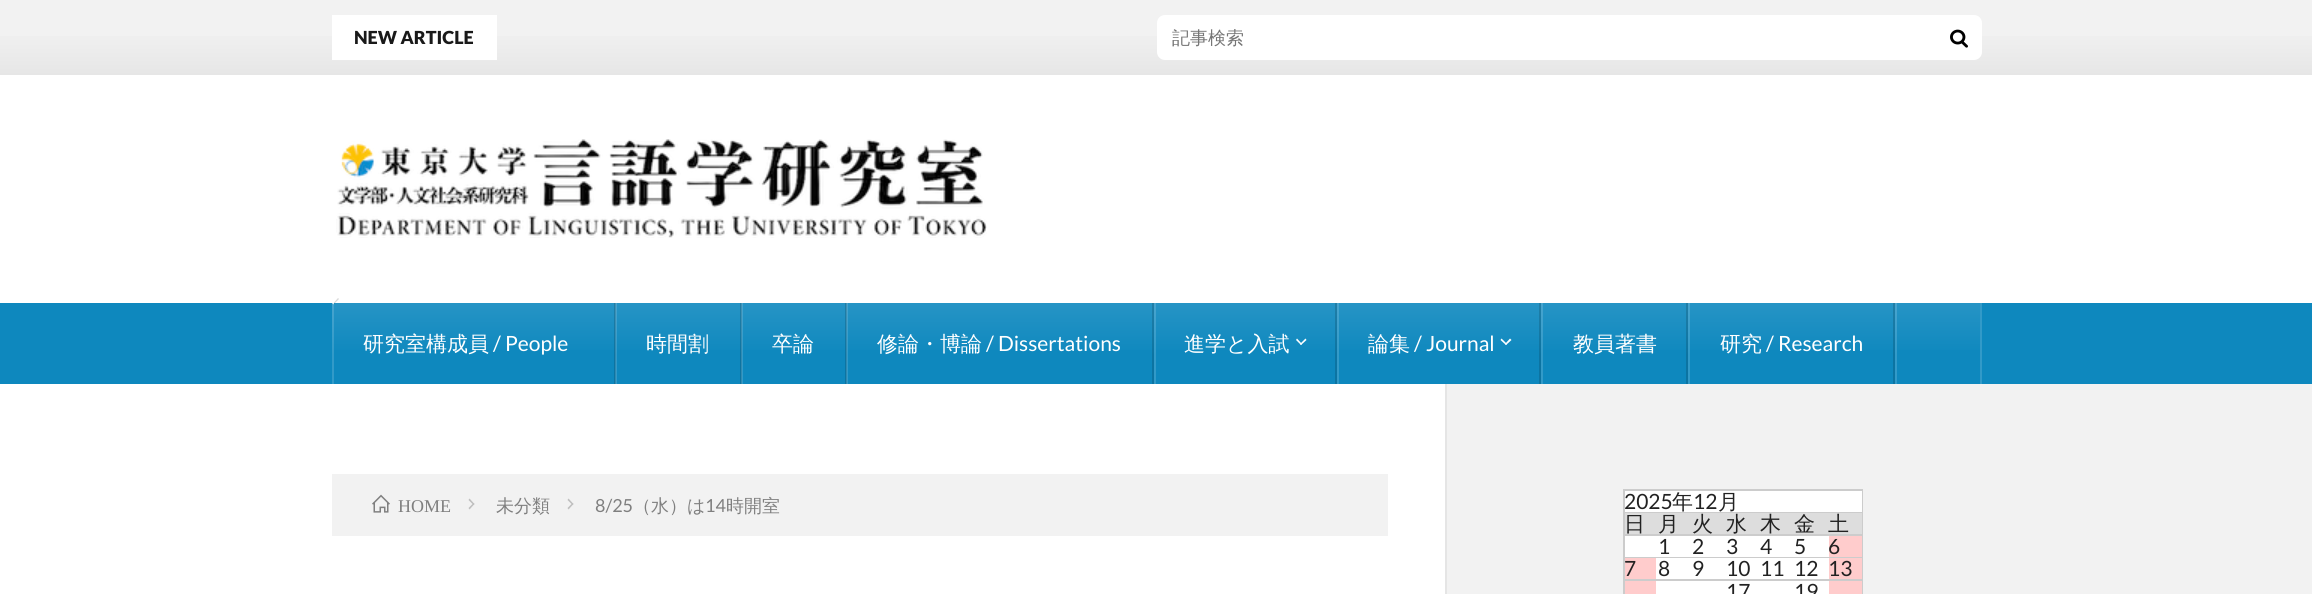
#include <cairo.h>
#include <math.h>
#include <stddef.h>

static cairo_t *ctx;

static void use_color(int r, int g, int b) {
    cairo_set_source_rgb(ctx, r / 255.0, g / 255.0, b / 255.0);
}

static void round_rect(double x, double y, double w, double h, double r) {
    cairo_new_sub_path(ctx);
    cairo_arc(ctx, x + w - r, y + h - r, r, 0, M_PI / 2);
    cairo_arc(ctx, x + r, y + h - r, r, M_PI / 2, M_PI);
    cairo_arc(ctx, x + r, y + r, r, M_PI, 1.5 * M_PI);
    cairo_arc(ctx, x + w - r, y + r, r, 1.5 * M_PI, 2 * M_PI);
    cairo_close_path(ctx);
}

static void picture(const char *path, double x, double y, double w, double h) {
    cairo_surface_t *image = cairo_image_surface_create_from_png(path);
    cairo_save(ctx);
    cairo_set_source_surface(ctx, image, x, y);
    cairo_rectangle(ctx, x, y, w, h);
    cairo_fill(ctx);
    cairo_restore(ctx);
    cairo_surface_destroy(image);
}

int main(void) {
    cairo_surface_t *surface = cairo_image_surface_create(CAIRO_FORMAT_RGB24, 2312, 594);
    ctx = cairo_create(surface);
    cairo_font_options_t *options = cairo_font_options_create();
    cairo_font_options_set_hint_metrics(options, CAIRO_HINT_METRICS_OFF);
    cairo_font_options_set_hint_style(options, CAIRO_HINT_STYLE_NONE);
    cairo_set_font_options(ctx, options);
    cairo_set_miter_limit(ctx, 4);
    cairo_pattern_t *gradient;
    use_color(242, 242, 242);
    cairo_paint(ctx);
    gradient = cairo_pattern_create_linear(1157, 0, 1157, 75);
    cairo_pattern_add_color_stop_rgba(gradient, 0, 0.949, 0.949, 0.949, 1);
    cairo_pattern_add_color_stop_rgba(gradient, 0.35, 0.949, 0.949, 0.949, 1);
    cairo_pattern_add_color_stop_rgba(gradient, 1, 0.902, 0.902, 0.902, 1);
    cairo_set_source(ctx, gradient);
    cairo_pattern_destroy(gradient);
    cairo_rectangle(ctx, 0, 36, 2312, 39);
    cairo_fill(ctx);
    use_color(255, 255, 255);
    cairo_rectangle(ctx, 332, 15, 165, 45);
    cairo_fill(ctx);
    cairo_select_font_face(ctx, "Lato Black", CAIRO_FONT_SLANT_NORMAL, CAIRO_FONT_WEIGHT_NORMAL);
    cairo_set_font_size(ctx, 18);
    use_color(25, 25, 25);
    cairo_move_to(ctx, 354, 44);
    cairo_show_text(ctx, "NEW ARTICLE");
    use_color(255, 255, 255);
    round_rect(1157, 15, 825, 45, 8);
    cairo_fill(ctx);
    cairo_select_font_face(ctx, "WenQuanYi Zen Hei Medium", CAIRO_FONT_SLANT_NORMAL, CAIRO_FONT_WEIGHT_NORMAL);
    use_color(117, 117, 117);
    cairo_move_to(ctx, 1172, 44);
    cairo_show_text(ctx, "記事検索");
    picture("img1.png", 1950, 29, 18, 19);
    use_color(255, 255, 255);
    cairo_rectangle(ctx, 0, 75, 2312, 228);
    cairo_fill(ctx);
    use_color(14, 136, 190);
    cairo_rectangle(ctx, 0, 303, 2312, 81);
    cairo_fill(ctx);
    picture("img2.png", 336, 139, 651, 99);
    use_color(50, 154, 200);
    cairo_rectangle(ctx, 1980, 303, 2, 81);
    cairo_fill(ctx);
    gradient = cairo_pattern_create_linear(1156, 384, 1156, 303);
    cairo_pattern_add_color_stop_rgba(gradient, 0, 0.055, 0.533, 0.745, 1);
    cairo_pattern_add_color_stop_rgba(gradient, 0.35, 0.055, 0.533, 0.745, 1);
    cairo_pattern_add_color_stop_rgba(gradient, 1, 0.149, 0.58, 0.773, 1);
    cairo_set_source(ctx, gradient);
    cairo_pattern_destroy(gradient);
    cairo_rectangle(ctx, 334, 303, 1646, 47);
    cairo_fill(ctx);
    gradient = cairo_pattern_create_linear(1156, 384, 1156, 303);
    cairo_pattern_add_color_stop_rgba(gradient, 0, 0.196, 0.604, 0.784, 1);
    cairo_pattern_add_color_stop_rgba(gradient, 0.35, 0.196, 0.604, 0.784, 1);
    cairo_pattern_add_color_stop_rgba(gradient, 1, 0.278, 0.643, 0.808, 1);
    cairo_set_source(ctx, gradient);
    cairo_pattern_destroy(gradient);
    cairo_rectangle(ctx, 1895, 303, 2, 81);
    cairo_fill(ctx);
    cairo_rectangle(ctx, 1688, 303, 2, 81);
    cairo_fill(ctx);
    gradient = cairo_pattern_create_linear(1156, 384, 1156, 303);
    cairo_pattern_add_color_stop_rgba(gradient, 0, 0.047, 0.455, 0.635, 1);
    cairo_pattern_add_color_stop_rgba(gradient, 0.35, 0.047, 0.455, 0.635, 1);
    cairo_pattern_add_color_stop_rgba(gradient, 1, 0.125, 0.494, 0.655, 1);
    cairo_set_source(ctx, gradient);
    cairo_pattern_destroy(gradient);
    cairo_rectangle(ctx, 1893, 303, 2, 81);
    cairo_fill(ctx);
    gradient = cairo_pattern_create_linear(1156, 384, 1156, 303);
    cairo_pattern_add_color_stop_rgba(gradient, 0, 0.196, 0.604, 0.784, 1);
    cairo_pattern_add_color_stop_rgba(gradient, 0.35, 0.196, 0.604, 0.784, 1);
    cairo_pattern_add_color_stop_rgba(gradient, 1, 0.278, 0.643, 0.808, 1);
    cairo_set_source(ctx, gradient);
    cairo_pattern_destroy(gradient);
    cairo_rectangle(ctx, 1541, 303, 2, 81);
    cairo_fill(ctx);
    gradient = cairo_pattern_create_linear(1156, 384, 1156, 303);
    cairo_pattern_add_color_stop_rgba(gradient, 0, 0.047, 0.455, 0.635, 1);
    cairo_pattern_add_color_stop_rgba(gradient, 0.35, 0.047, 0.455, 0.635, 1);
    cairo_pattern_add_color_stop_rgba(gradient, 1, 0.125, 0.494, 0.655, 1);
    cairo_set_source(ctx, gradient);
    cairo_pattern_destroy(gradient);
    cairo_rectangle(ctx, 1686, 303, 2, 81);
    cairo_fill(ctx);
    gradient = cairo_pattern_create_linear(1156, 384, 1156, 303);
    cairo_pattern_add_color_stop_rgba(gradient, 0, 0.196, 0.604, 0.784, 1);
    cairo_pattern_add_color_stop_rgba(gradient, 0.35, 0.196, 0.604, 0.784, 1);
    cairo_pattern_add_color_stop_rgba(gradient, 1, 0.278, 0.643, 0.808, 1);
    cairo_set_source(ctx, gradient);
    cairo_pattern_destroy(gradient);
    cairo_rectangle(ctx, 1337, 303, 2, 81);
    cairo_fill(ctx);
    gradient = cairo_pattern_create_linear(1156, 384, 1156, 303);
    cairo_pattern_add_color_stop_rgba(gradient, 0, 0.047, 0.455, 0.635, 1);
    cairo_pattern_add_color_stop_rgba(gradient, 0.35, 0.047, 0.455, 0.635, 1);
    cairo_pattern_add_color_stop_rgba(gradient, 1, 0.125, 0.494, 0.655, 1);
    cairo_set_source(ctx, gradient);
    cairo_pattern_destroy(gradient);
    cairo_rectangle(ctx, 1539, 303, 2, 81);
    cairo_fill(ctx);
    gradient = cairo_pattern_create_linear(1156, 384, 1156, 303);
    cairo_pattern_add_color_stop_rgba(gradient, 0, 0.196, 0.604, 0.784, 1);
    cairo_pattern_add_color_stop_rgba(gradient, 0.35, 0.196, 0.604, 0.784, 1);
    cairo_pattern_add_color_stop_rgba(gradient, 1, 0.278, 0.643, 0.808, 1);
    cairo_set_source(ctx, gradient);
    cairo_pattern_destroy(gradient);
    cairo_rectangle(ctx, 1154, 303, 2, 81);
    cairo_fill(ctx);
    gradient = cairo_pattern_create_linear(1156, 384, 1156, 303);
    cairo_pattern_add_color_stop_rgba(gradient, 0, 0.047, 0.455, 0.635, 1);
    cairo_pattern_add_color_stop_rgba(gradient, 0.35, 0.047, 0.455, 0.635, 1);
    cairo_pattern_add_color_stop_rgba(gradient, 1, 0.125, 0.494, 0.655, 1);
    cairo_set_source(ctx, gradient);
    cairo_pattern_destroy(gradient);
    cairo_rectangle(ctx, 1335, 303, 2, 81);
    cairo_fill(ctx);
    gradient = cairo_pattern_create_linear(1156, 384, 1156, 303);
    cairo_pattern_add_color_stop_rgba(gradient, 0, 0.196, 0.604, 0.784, 1);
    cairo_pattern_add_color_stop_rgba(gradient, 0.35, 0.196, 0.604, 0.784, 1);
    cairo_pattern_add_color_stop_rgba(gradient, 1, 0.278, 0.643, 0.808, 1);
    cairo_set_source(ctx, gradient);
    cairo_pattern_destroy(gradient);
    cairo_rectangle(ctx, 847, 303, 1, 81);
    cairo_fill(ctx);
    gradient = cairo_pattern_create_linear(1156, 384, 1156, 303);
    cairo_pattern_add_color_stop_rgba(gradient, 0, 0.047, 0.455, 0.635, 1);
    cairo_pattern_add_color_stop_rgba(gradient, 0.35, 0.047, 0.455, 0.635, 1);
    cairo_pattern_add_color_stop_rgba(gradient, 1, 0.125, 0.494, 0.655, 1);
    cairo_set_source(ctx, gradient);
    cairo_pattern_destroy(gradient);
    cairo_rectangle(ctx, 1152, 303, 2, 81);
    cairo_fill(ctx);
    gradient = cairo_pattern_create_linear(1156, 384, 1156, 303);
    cairo_pattern_add_color_stop_rgba(gradient, 0, 0.196, 0.604, 0.784, 1);
    cairo_pattern_add_color_stop_rgba(gradient, 0.35, 0.196, 0.604, 0.784, 1);
    cairo_pattern_add_color_stop_rgba(gradient, 1, 0.278, 0.643, 0.808, 1);
    cairo_set_source(ctx, gradient);
    cairo_pattern_destroy(gradient);
    cairo_rectangle(ctx, 742, 303, 1, 81);
    cairo_fill(ctx);
    gradient = cairo_pattern_create_linear(1156, 384, 1156, 303);
    cairo_pattern_add_color_stop_rgba(gradient, 0, 0.047, 0.455, 0.635, 1);
    cairo_pattern_add_color_stop_rgba(gradient, 0.35, 0.047, 0.455, 0.635, 1);
    cairo_pattern_add_color_stop_rgba(gradient, 1, 0.125, 0.494, 0.655, 1);
    cairo_set_source(ctx, gradient);
    cairo_pattern_destroy(gradient);
    cairo_rectangle(ctx, 845, 303, 1, 81);
    cairo_fill(ctx);
    gradient = cairo_pattern_create_linear(1156, 384, 1156, 303);
    cairo_pattern_add_color_stop_rgba(gradient, 0, 0.188, 0.537, 0.69, 1);
    cairo_pattern_add_color_stop_rgba(gradient, 0.35, 0.188, 0.537, 0.69, 1);
    cairo_pattern_add_color_stop_rgba(gradient, 1, 0.255, 0.569, 0.706, 1);
    cairo_set_source(ctx, gradient);
    cairo_pattern_destroy(gradient);
    cairo_rectangle(ctx, 846, 303, 1, 81);
    cairo_fill(ctx);
    gradient = cairo_pattern_create_linear(1156, 384, 1156, 303);
    cairo_pattern_add_color_stop_rgba(gradient, 0, 0.196, 0.604, 0.784, 1);
    cairo_pattern_add_color_stop_rgba(gradient, 0.35, 0.196, 0.604, 0.784, 1);
    cairo_pattern_add_color_stop_rgba(gradient, 1, 0.278, 0.643, 0.808, 1);
    cairo_set_source(ctx, gradient);
    cairo_pattern_destroy(gradient);
    cairo_rectangle(ctx, 616, 303, 1, 81);
    cairo_fill(ctx);
    gradient = cairo_pattern_create_linear(1156, 384, 1156, 303);
    cairo_pattern_add_color_stop_rgba(gradient, 0, 0.047, 0.455, 0.635, 1);
    cairo_pattern_add_color_stop_rgba(gradient, 0.35, 0.047, 0.455, 0.635, 1);
    cairo_pattern_add_color_stop_rgba(gradient, 1, 0.125, 0.494, 0.655, 1);
    cairo_set_source(ctx, gradient);
    cairo_pattern_destroy(gradient);
    cairo_rectangle(ctx, 740, 303, 1, 81);
    cairo_fill(ctx);
    gradient = cairo_pattern_create_linear(1156, 384, 1156, 303);
    cairo_pattern_add_color_stop_rgba(gradient, 0, 0.188, 0.537, 0.69, 1);
    cairo_pattern_add_color_stop_rgba(gradient, 0.35, 0.188, 0.537, 0.69, 1);
    cairo_pattern_add_color_stop_rgba(gradient, 1, 0.255, 0.569, 0.706, 1);
    cairo_set_source(ctx, gradient);
    cairo_pattern_destroy(gradient);
    cairo_rectangle(ctx, 741, 303, 1, 81);
    cairo_fill(ctx);
    gradient = cairo_pattern_create_linear(1156, 384, 1156, 303);
    cairo_pattern_add_color_stop_rgba(gradient, 0, 0.196, 0.604, 0.784, 1);
    cairo_pattern_add_color_stop_rgba(gradient, 0.35, 0.196, 0.604, 0.784, 1);
    cairo_pattern_add_color_stop_rgba(gradient, 1, 0.278, 0.643, 0.808, 1);
    cairo_set_source(ctx, gradient);
    cairo_pattern_destroy(gradient);
    cairo_rectangle(ctx, 332, 303, 2, 81);
    cairo_fill(ctx);
    gradient = cairo_pattern_create_linear(1156, 384, 1156, 303);
    cairo_pattern_add_color_stop_rgba(gradient, 0, 0.047, 0.455, 0.635, 1);
    cairo_pattern_add_color_stop_rgba(gradient, 0.35, 0.047, 0.455, 0.635, 1);
    cairo_pattern_add_color_stop_rgba(gradient, 1, 0.125, 0.494, 0.655, 1);
    cairo_set_source(ctx, gradient);
    cairo_pattern_destroy(gradient);
    cairo_rectangle(ctx, 614, 303, 1, 81);
    cairo_fill(ctx);
    gradient = cairo_pattern_create_linear(1156, 384, 1156, 303);
    cairo_pattern_add_color_stop_rgba(gradient, 0, 0.188, 0.537, 0.69, 1);
    cairo_pattern_add_color_stop_rgba(gradient, 0.35, 0.188, 0.537, 0.69, 1);
    cairo_pattern_add_color_stop_rgba(gradient, 1, 0.255, 0.569, 0.706, 1);
    cairo_set_source(ctx, gradient);
    cairo_pattern_destroy(gradient);
    cairo_rectangle(ctx, 615, 303, 1, 81);
    cairo_fill(ctx);
    cairo_set_source_rgba(ctx, 0, 0, 0, 0.15);
    cairo_new_path(ctx);
    cairo_move_to(ctx, 339, 299);
    cairo_line_to(ctx, 333.5, 304.5);
    cairo_line_to(ctx, 334, 302.5);
    cairo_line_to(ctx, 338, 298);
    cairo_close_path(ctx);
    cairo_fill(ctx);
    use_color(255, 255, 255);
    cairo_new_path(ctx);
    cairo_move_to(ctx, 333.5, 304.5);
    cairo_line_to(ctx, 328.5, 299.5);
    cairo_line_to(ctx, 329.5, 298);
    cairo_line_to(ctx, 334, 302.5);
    cairo_close_path(ctx);
    cairo_fill(ctx);
    cairo_set_font_size(ctx, 21);
    cairo_move_to(ctx, 363, 351);
    cairo_show_text(ctx, "研究室構成員");
    cairo_select_font_face(ctx, "Lato", CAIRO_FONT_SLANT_NORMAL, CAIRO_FONT_WEIGHT_NORMAL);
    cairo_move_to(ctx, 493, 351);
    cairo_show_text(ctx, "/ People");
    cairo_select_font_face(ctx, "WenQuanYi Zen Hei Medium", CAIRO_FONT_SLANT_NORMAL, CAIRO_FONT_WEIGHT_NORMAL);
    cairo_move_to(ctx, 646, 351);
    cairo_show_text(ctx, "時間割");
    cairo_move_to(ctx, 772, 351);
    cairo_show_text(ctx, "卒論");
    cairo_move_to(ctx, 877, 351);
    cairo_show_text(ctx, "修論・博論");
    cairo_select_font_face(ctx, "Lato", CAIRO_FONT_SLANT_NORMAL, CAIRO_FONT_WEIGHT_NORMAL);
    cairo_move_to(ctx, 986, 351);
    cairo_show_text(ctx, "/ Dissertations");
    cairo_select_font_face(ctx, "WenQuanYi Zen Hei Medium", CAIRO_FONT_SLANT_NORMAL, CAIRO_FONT_WEIGHT_NORMAL);
    cairo_move_to(ctx, 1184, 351);
    cairo_show_text(ctx, "進学と入試");
    cairo_new_path(ctx);
    cairo_move_to(ctx, 1305.5, 338.5);
    cairo_line_to(ctx, 1306.5, 340);
    cairo_line_to(ctx, 1301, 345);
    cairo_line_to(ctx, 1300, 344);
    cairo_close_path(ctx);
    cairo_fill(ctx);
    cairo_new_path(ctx);
    cairo_move_to(ctx, 1297, 338.5);
    cairo_line_to(ctx, 1302, 344);
    cairo_line_to(ctx, 1301, 345);
    cairo_line_to(ctx, 1296, 340);
    cairo_close_path(ctx);
    cairo_fill(ctx);
    cairo_move_to(ctx, 1368, 351);
    cairo_show_text(ctx, "論集");
    cairo_select_font_face(ctx, "Lato", CAIRO_FONT_SLANT_NORMAL, CAIRO_FONT_WEIGHT_NORMAL);
    cairo_move_to(ctx, 1414, 351);
    cairo_show_text(ctx, "/ Journal");
    cairo_new_path(ctx);
    cairo_move_to(ctx, 1510, 338.5);
    cairo_line_to(ctx, 1511.5, 340);
    cairo_line_to(ctx, 1506, 345);
    cairo_line_to(ctx, 1505, 344);
    cairo_close_path(ctx);
    cairo_fill(ctx);
    cairo_new_path(ctx);
    cairo_move_to(ctx, 1501.5, 338.5);
    cairo_line_to(ctx, 1507, 344);
    cairo_line_to(ctx, 1506, 345);
    cairo_line_to(ctx, 1500.5, 340);
    cairo_close_path(ctx);
    cairo_fill(ctx);
    cairo_select_font_face(ctx, "WenQuanYi Zen Hei Medium", CAIRO_FONT_SLANT_NORMAL, CAIRO_FONT_WEIGHT_NORMAL);
    cairo_move_to(ctx, 1573, 351);
    cairo_show_text(ctx, "教員著書");
    cairo_move_to(ctx, 1720, 351);
    cairo_show_text(ctx, "研究");
    cairo_select_font_face(ctx, "Lato", CAIRO_FONT_SLANT_NORMAL, CAIRO_FONT_WEIGHT_NORMAL);
    cairo_move_to(ctx, 1766, 351);
    cairo_show_text(ctx, "/ Research");
    cairo_rectangle(ctx, 0, 384, 1445, 210);
    cairo_fill(ctx);
    use_color(229, 229, 229);
    cairo_rectangle(ctx, 1445, 384, 2, 210);
    cairo_fill(ctx);
    use_color(242, 242, 242);
    cairo_rectangle(ctx, 332, 474, 1056, 62);
    cairo_fill(ctx);
    picture("img3.png", 372, 494, 18, 19);
    cairo_select_font_face(ctx, "Liberation Serif", CAIRO_FONT_SLANT_NORMAL, CAIRO_FONT_WEIGHT_NORMAL);
    cairo_set_font_size(ctx, 18);
    use_color(127, 127, 127);
    cairo_move_to(ctx, 398, 512);
    cairo_show_text(ctx, "HOME");
    use_color(191, 191, 191);
    cairo_new_path(ctx);
    cairo_move_to(ctx, 469.5, 498.5);
    cairo_line_to(ctx, 474.5, 504);
    cairo_line_to(ctx, 473.5, 505);
    cairo_line_to(ctx, 468.5, 500);
    cairo_close_path(ctx);
    cairo_fill(ctx);
    cairo_new_path(ctx);
    cairo_move_to(ctx, 473.5, 503);
    cairo_line_to(ctx, 474.5, 504);
    cairo_line_to(ctx, 469.5, 509.5);
    cairo_line_to(ctx, 468.5, 508);
    cairo_close_path(ctx);
    cairo_fill(ctx);
    cairo_select_font_face(ctx, "WenQuanYi Zen Hei Medium", CAIRO_FONT_SLANT_NORMAL, CAIRO_FONT_WEIGHT_NORMAL);
    use_color(127, 127, 127);
    cairo_move_to(ctx, 496, 512);
    cairo_show_text(ctx, "未分類");
    use_color(191, 191, 191);
    cairo_new_path(ctx);
    cairo_move_to(ctx, 568.5, 498.5);
    cairo_line_to(ctx, 573.5, 504);
    cairo_line_to(ctx, 572.5, 505);
    cairo_line_to(ctx, 567.5, 500);
    cairo_close_path(ctx);
    cairo_fill(ctx);
    cairo_new_path(ctx);
    cairo_move_to(ctx, 572.5, 503);
    cairo_line_to(ctx, 573.5, 504);
    cairo_line_to(ctx, 568.5, 509.5);
    cairo_line_to(ctx, 567.5, 508);
    cairo_close_path(ctx);
    cairo_fill(ctx);
    cairo_select_font_face(ctx, "Lato", CAIRO_FONT_SLANT_NORMAL, CAIRO_FONT_WEIGHT_NORMAL);
    use_color(127, 127, 127);
    cairo_move_to(ctx, 595, 512);
    cairo_show_text(ctx, "8/25");
    cairo_select_font_face(ctx, "WenQuanYi Zen Hei Medium", CAIRO_FONT_SLANT_NORMAL, CAIRO_FONT_WEIGHT_NORMAL);
    cairo_move_to(ctx, 633, 512);
    cairo_show_text(ctx, "（水）は");
    cairo_select_font_face(ctx, "Lato", CAIRO_FONT_SLANT_NORMAL, CAIRO_FONT_WEIGHT_NORMAL);
    cairo_move_to(ctx, 705, 512);
    cairo_show_text(ctx, "14");
    cairo_select_font_face(ctx, "WenQuanYi Zen Hei Medium", CAIRO_FONT_SLANT_NORMAL, CAIRO_FONT_WEIGHT_NORMAL);
    cairo_move_to(ctx, 726, 512);
    cairo_show_text(ctx, "時開室");
    use_color(204, 204, 204);
    cairo_rectangle(ctx, 1623, 489, 240, 105);
    cairo_fill(ctx);
    use_color(255, 255, 255);
    cairo_rectangle(ctx, 1625, 491, 237, 21);
    cairo_fill(ctx);
    cairo_select_font_face(ctx, "Lato", CAIRO_FONT_SLANT_NORMAL, CAIRO_FONT_WEIGHT_NORMAL);
    cairo_set_font_size(ctx, 21);
    use_color(34, 34, 34);
    cairo_move_to(ctx, 1624, 509);
    cairo_show_text(ctx, "2025");
    cairo_select_font_face(ctx, "WenQuanYi Zen Hei Medium", CAIRO_FONT_SLANT_NORMAL, CAIRO_FONT_WEIGHT_NORMAL);
    cairo_move_to(ctx, 1672, 509);
    cairo_show_text(ctx, "年");
    cairo_select_font_face(ctx, "Lato", CAIRO_FONT_SLANT_NORMAL, CAIRO_FONT_WEIGHT_NORMAL);
    cairo_move_to(ctx, 1693, 509);
    cairo_show_text(ctx, "12");
    cairo_select_font_face(ctx, "WenQuanYi Zen Hei Medium", CAIRO_FONT_SLANT_NORMAL, CAIRO_FONT_WEIGHT_NORMAL);
    cairo_move_to(ctx, 1718, 509);
    cairo_show_text(ctx, "月");
    use_color(221, 221, 221);
    cairo_rectangle(ctx, 1625, 513, 237, 21);
    cairo_fill(ctx);
    use_color(34, 34, 34);
    cairo_move_to(ctx, 1624, 531);
    cairo_show_text(ctx, "日");
    cairo_move_to(ctx, 1658, 531);
    cairo_show_text(ctx, "月");
    cairo_move_to(ctx, 1692, 531);
    cairo_show_text(ctx, "火");
    cairo_move_to(ctx, 1726, 531);
    cairo_show_text(ctx, "水");
    cairo_move_to(ctx, 1760, 531);
    cairo_show_text(ctx, "木");
    cairo_move_to(ctx, 1794, 531);
    cairo_show_text(ctx, "金");
    cairo_move_to(ctx, 1828, 531);
    cairo_show_text(ctx, "土");
    use_color(255, 255, 255);
    cairo_rectangle(ctx, 1625, 536, 204, 21);
    cairo_fill(ctx);
    cairo_select_font_face(ctx, "Lato", CAIRO_FONT_SLANT_NORMAL, CAIRO_FONT_WEIGHT_NORMAL);
    use_color(34, 34, 34);
    cairo_move_to(ctx, 1658, 554);
    cairo_show_text(ctx, "1");
    cairo_move_to(ctx, 1692, 554);
    cairo_show_text(ctx, "2");
    cairo_move_to(ctx, 1726, 554);
    cairo_show_text(ctx, "3");
    cairo_move_to(ctx, 1760, 554);
    cairo_show_text(ctx, "4");
    cairo_move_to(ctx, 1794, 554);
    cairo_show_text(ctx, "5");
    use_color(255, 204, 204);
    cairo_rectangle(ctx, 1829, 536, 33, 21);
    cairo_fill(ctx);
    use_color(34, 34, 34);
    cairo_move_to(ctx, 1828, 554);
    cairo_show_text(ctx, "6");
    use_color(255, 255, 255);
    cairo_rectangle(ctx, 1656, 558, 173, 21);
    cairo_fill(ctx);
    use_color(255, 204, 204);
    cairo_rectangle(ctx, 1625, 558, 31, 21);
    cairo_fill(ctx);
    use_color(34, 34, 34);
    cairo_move_to(ctx, 1624, 576);
    cairo_show_text(ctx, "7");
    cairo_move_to(ctx, 1658, 576);
    cairo_show_text(ctx, "8");
    cairo_move_to(ctx, 1692, 576);
    cairo_show_text(ctx, "9");
    cairo_move_to(ctx, 1726, 576);
    cairo_show_text(ctx, "10");
    cairo_move_to(ctx, 1760, 576);
    cairo_show_text(ctx, "11");
    cairo_move_to(ctx, 1794, 576);
    cairo_show_text(ctx, "12");
    use_color(255, 204, 204);
    cairo_rectangle(ctx, 1829, 558, 33, 21);
    cairo_fill(ctx);
    use_color(34, 34, 34);
    cairo_move_to(ctx, 1828, 576);
    cairo_show_text(ctx, "13");
    use_color(255, 255, 255);
    cairo_rectangle(ctx, 1656, 581, 173, 13);
    cairo_fill(ctx);
    use_color(255, 204, 204);
    cairo_rectangle(ctx, 1625, 581, 31, 13);
    cairo_fill(ctx);
    use_color(34, 34, 34);
    cairo_move_to(ctx, 1726, 599);
    cairo_show_text(ctx, "17");
    cairo_move_to(ctx, 1794, 599);
    cairo_show_text(ctx, "19");
    use_color(255, 204, 204);
    cairo_rectangle(ctx, 1829, 581, 33, 13);
    cairo_fill(ctx);
    cairo_surface_write_to_png(surface, "result.png");
    cairo_font_options_destroy(options);
    cairo_destroy(ctx);
    cairo_surface_destroy(surface);
    return 0;
}
